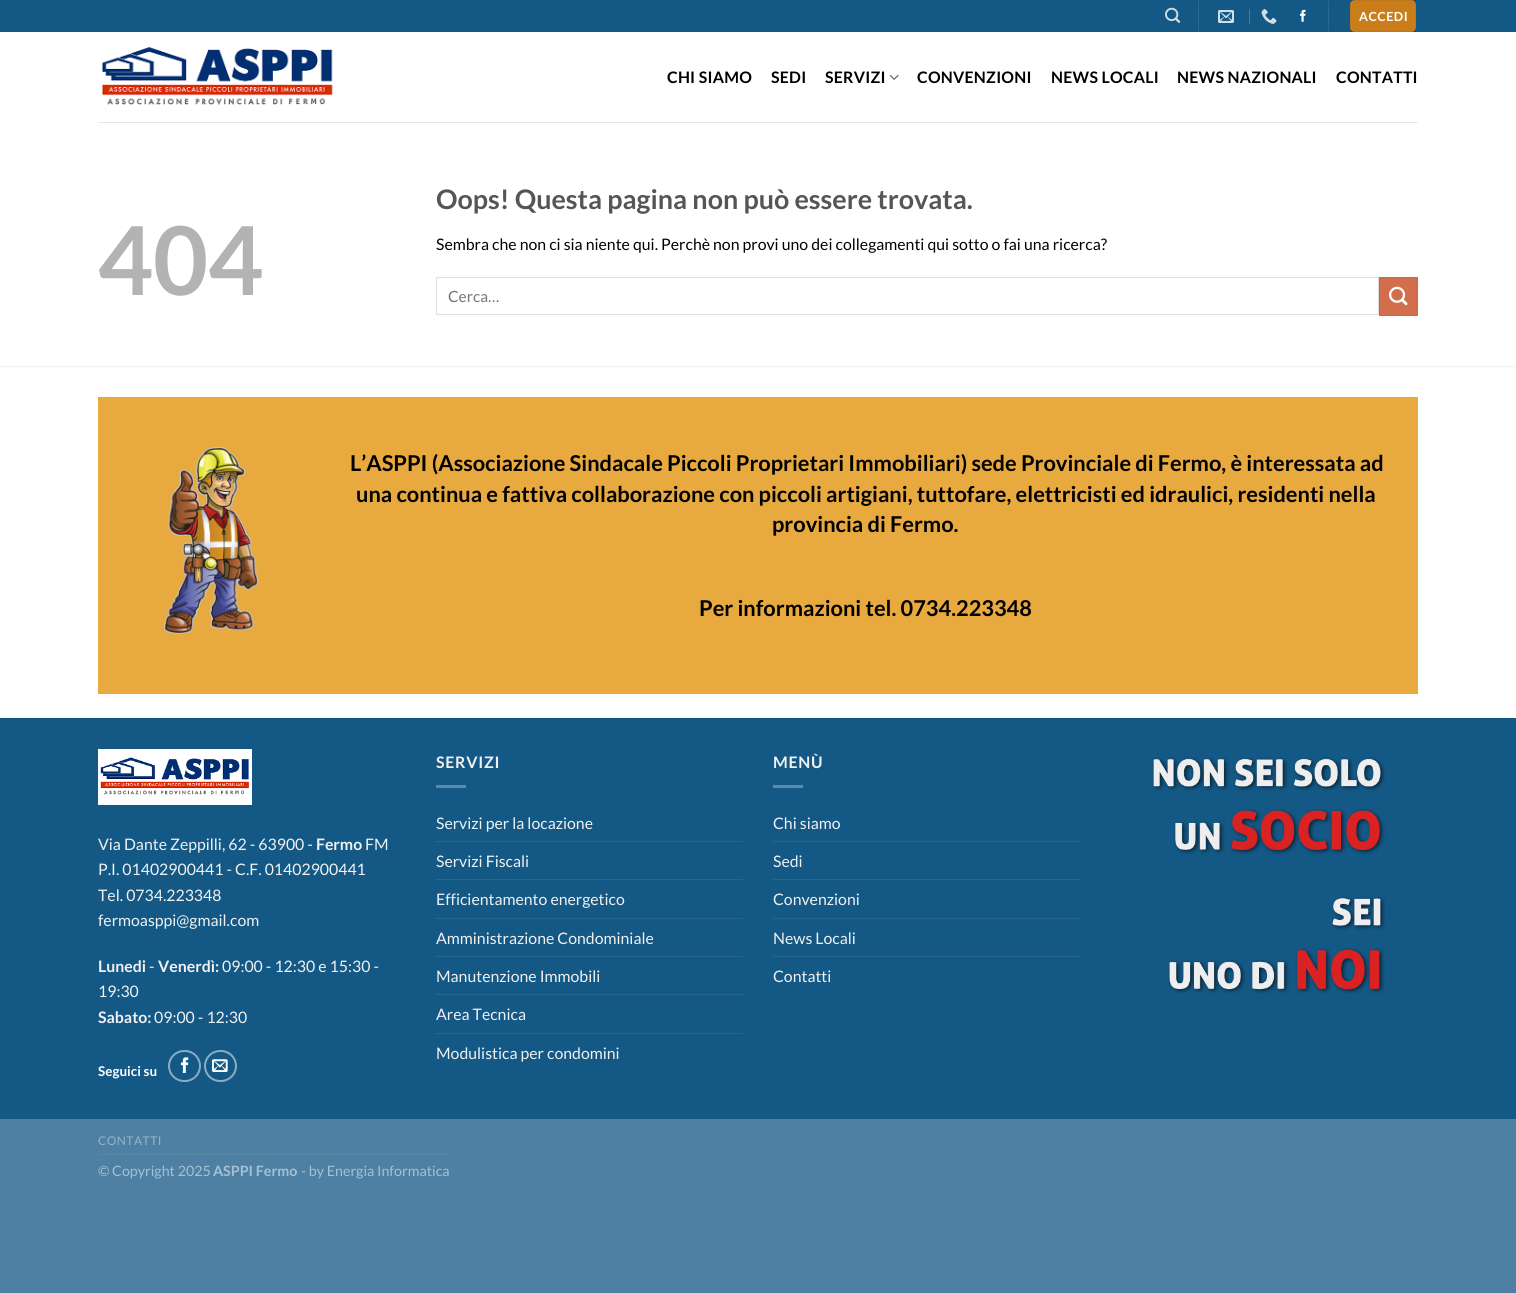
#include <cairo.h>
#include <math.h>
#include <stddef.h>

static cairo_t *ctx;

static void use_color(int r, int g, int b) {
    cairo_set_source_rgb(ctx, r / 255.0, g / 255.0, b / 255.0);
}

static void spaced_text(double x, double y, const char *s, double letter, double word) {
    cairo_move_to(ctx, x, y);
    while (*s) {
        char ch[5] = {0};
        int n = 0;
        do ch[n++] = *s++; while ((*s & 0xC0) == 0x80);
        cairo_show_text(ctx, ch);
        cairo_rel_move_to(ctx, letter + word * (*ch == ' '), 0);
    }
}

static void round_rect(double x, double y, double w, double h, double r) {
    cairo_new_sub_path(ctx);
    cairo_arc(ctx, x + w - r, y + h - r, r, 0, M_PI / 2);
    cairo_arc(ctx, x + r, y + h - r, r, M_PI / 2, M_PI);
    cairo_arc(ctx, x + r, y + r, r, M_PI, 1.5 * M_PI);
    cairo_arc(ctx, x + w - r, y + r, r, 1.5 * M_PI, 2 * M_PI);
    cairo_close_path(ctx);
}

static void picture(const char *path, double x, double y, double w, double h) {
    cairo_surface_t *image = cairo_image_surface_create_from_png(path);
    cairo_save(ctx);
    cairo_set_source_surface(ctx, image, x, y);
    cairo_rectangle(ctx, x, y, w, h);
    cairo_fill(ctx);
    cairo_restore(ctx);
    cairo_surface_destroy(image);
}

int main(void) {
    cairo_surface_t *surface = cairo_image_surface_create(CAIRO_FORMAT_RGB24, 1516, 1293);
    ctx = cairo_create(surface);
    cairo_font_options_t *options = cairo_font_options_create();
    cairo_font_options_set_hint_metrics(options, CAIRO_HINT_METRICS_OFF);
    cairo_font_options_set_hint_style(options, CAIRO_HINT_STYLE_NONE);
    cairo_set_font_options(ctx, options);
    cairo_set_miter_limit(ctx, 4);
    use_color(77, 128, 163);
    cairo_paint(ctx);
    use_color(255, 255, 255);
    cairo_rectangle(ctx, 0, 32, 1516, 686);
    cairo_fill(ctx);
    use_color(20, 88, 133);
    cairo_rectangle(ctx, 0, 0, 1516, 32);
    cairo_fill(ctx);
    picture("img1.png", 1165, 7, 16, 16);
    use_color(44, 105, 145);
    cairo_rectangle(ctx, 1198, 1, 1, 30);
    cairo_fill(ctx);
    picture("img2.png", 1218, 10, 16, 13);
    use_color(67, 121, 157);
    cairo_rectangle(ctx, 1249, 9, 1, 15);
    cairo_fill(ctx);
    picture("img3.png", 1261, 9, 16, 15);
    picture("img4.png", 1299, 9, 7, 13);
    use_color(44, 105, 145);
    cairo_rectangle(ctx, 1328, 1, 1, 30);
    cairo_fill(ctx);
    use_color(201, 126, 27);
    round_rect(1350, 0, 66, 32, 5);
    cairo_fill(ctx);
    cairo_rectangle(ctx, 1350.5, 0.5, 65, 31);
    cairo_set_source_rgba(ctx, 0, 0, 0, 0.05);
    cairo_set_line_width(ctx, 1);
    cairo_stroke(ctx);
    cairo_select_font_face(ctx, "Lato", CAIRO_FONT_SLANT_NORMAL, CAIRO_FONT_WEIGHT_BOLD);
    cairo_set_font_size(ctx, 12.5);
    use_color(255, 255, 255);
    spaced_text(1359, 21, "ACCEDI", 0.5, 0);
    picture("img5.png", 101, 46, 232, 59);
    cairo_set_font_size(ctx, 15.85);
    use_color(0, 0, 0);
    spaced_text(667, 83, "CHI SIAMO", 0.25, 0);
    spaced_text(771, 83, "SEDI", 0.25, 0);
    spaced_text(825, 83, "SERVIZI", 0.25, 0);
    picture("img6.png", 889, 74, 10, 6);
    spaced_text(917, 83, "CONVENZIONI", 0.25, 0);
    spaced_text(1051, 83, "NEWS LOCALI", 0.25, 0);
    spaced_text(1177, 83, "NEWS NAZIONALI", 0.25, 0);
    spaced_text(1336, 83, "CONTATTI", 0.25, 0);
    use_color(230, 230, 230);
    cairo_rectangle(ctx, 98, 122, 1320, 1);
    cairo_fill(ctx);
    cairo_set_font_size(ctx, 95);
    use_color(179, 179, 179);
    cairo_move_to(ctx, 98, 295);
    cairo_show_text(ctx, "404");
    cairo_set_font_size(ctx, 26.9);
    use_color(85, 85, 85);
    cairo_move_to(ctx, 436, 209);
    cairo_show_text(ctx, "Oops! Questa pagina non può essere trovata.");
    cairo_select_font_face(ctx, "Lato", CAIRO_FONT_SLANT_NORMAL, CAIRO_FONT_WEIGHT_NORMAL);
    cairo_set_font_size(ctx, 15.85);
    use_color(0, 0, 0);
    cairo_move_to(ctx, 436, 250);
    cairo_show_text(ctx, "Sembra che non ci sia niente qui. Perchè non provi uno dei collegamenti qui sotto o fai una ricerca?");
    cairo_rectangle(ctx, 436.5, 277.5, 942, 37);
    use_color(221, 221, 221);
    cairo_stroke(ctx);
    cairo_set_font_size(ctx, 15.5);
    use_color(117, 117, 117);
    cairo_move_to(ctx, 448, 302);
    cairo_show_text(ctx, "Cerca…");
    use_color(210, 110, 75);
    cairo_rectangle(ctx, 1379.5, 277.5, 38, 38);
    cairo_fill_preserve(ctx);
    use_color(200, 105, 71);
    cairo_stroke(ctx);
    picture("img7.png", 1389, 286, 19, 20);
    use_color(242, 242, 242);
    cairo_rectangle(ctx, 0, 366, 1516, 1);
    cairo_fill(ctx);
    use_color(232, 169, 62);
    cairo_rectangle(ctx, 98, 397, 1320, 297);
    cairo_fill(ctx);
    picture("img8.png", 164, 447, 94, 187);
    cairo_select_font_face(ctx, "Lato", CAIRO_FONT_SLANT_NORMAL, CAIRO_FONT_WEIGHT_BOLD);
    cairo_set_font_size(ctx, 21.8);
    use_color(0, 0, 0);
    cairo_move_to(ctx, 350, 471);
    cairo_show_text(ctx, "L’ASPPI (Associazione Sindacale Piccoli Proprietari Immobiliari) sede Provinciale di Fermo, è interessata ad");
    cairo_move_to(ctx, 356, 502);
    cairo_show_text(ctx, "una continua e fattiva collaborazione con piccoli artigiani, tuttofare, elettricisti ed idraulici, residenti nella");
    cairo_move_to(ctx, 772, 532);
    cairo_show_text(ctx, "provincia di Fermo.");
    cairo_move_to(ctx, 699, 616);
    cairo_show_text(ctx, "Per informazioni tel. 0734.223348");
    use_color(20, 88, 133);
    cairo_rectangle(ctx, 0, 719, 1516, 400);
    cairo_fill(ctx);
    use_color(19, 84, 126);
    cairo_rectangle(ctx, 0, 718, 1516, 1);
    cairo_fill(ctx);
    picture("img9.png", 98, 749, 154, 56);
    cairo_select_font_face(ctx, "Lato", CAIRO_FONT_SLANT_NORMAL, CAIRO_FONT_WEIGHT_NORMAL);
    cairo_set_font_size(ctx, 15.85);
    use_color(241, 241, 241);
    cairo_move_to(ctx, 98, 850);
    cairo_show_text(ctx, "Via Dante Zeppilli, 62 - 63900 -");
    cairo_select_font_face(ctx, "Lato", CAIRO_FONT_SLANT_NORMAL, CAIRO_FONT_WEIGHT_BOLD);
    cairo_move_to(ctx, 316, 850);
    cairo_show_text(ctx, "Fermo");
    cairo_select_font_face(ctx, "Lato", CAIRO_FONT_SLANT_NORMAL, CAIRO_FONT_WEIGHT_NORMAL);
    cairo_move_to(ctx, 365, 850);
    cairo_show_text(ctx, "FM");
    cairo_move_to(ctx, 98, 875);
    cairo_show_text(ctx, "P.I. 01402900441 - C.F. 01402900441");
    cairo_move_to(ctx, 98, 901);
    cairo_show_text(ctx, "Tel. 0734.223348");
    cairo_move_to(ctx, 98, 926);
    cairo_show_text(ctx, "fermoasppi@gmail.com");
    cairo_select_font_face(ctx, "Lato", CAIRO_FONT_SLANT_NORMAL, CAIRO_FONT_WEIGHT_BOLD);
    cairo_move_to(ctx, 98, 972);
    cairo_show_text(ctx, "Lunedi");
    cairo_select_font_face(ctx, "Lato", CAIRO_FONT_SLANT_NORMAL, CAIRO_FONT_WEIGHT_NORMAL);
    cairo_move_to(ctx, 149, 972);
    cairo_show_text(ctx, "-");
    cairo_select_font_face(ctx, "Lato", CAIRO_FONT_SLANT_NORMAL, CAIRO_FONT_WEIGHT_BOLD);
    cairo_move_to(ctx, 158, 972);
    cairo_show_text(ctx, "Venerdì:");
    cairo_select_font_face(ctx, "Lato", CAIRO_FONT_SLANT_NORMAL, CAIRO_FONT_WEIGHT_NORMAL);
    cairo_move_to(ctx, 222, 972);
    cairo_show_text(ctx, "09:00 - 12:30 e 15:30 -");
    cairo_move_to(ctx, 98, 997);
    cairo_show_text(ctx, "19:30");
    cairo_select_font_face(ctx, "Lato", CAIRO_FONT_SLANT_NORMAL, CAIRO_FONT_WEIGHT_BOLD);
    cairo_move_to(ctx, 98, 1023);
    cairo_show_text(ctx, "Sabato:");
    cairo_select_font_face(ctx, "Lato", CAIRO_FONT_SLANT_NORMAL, CAIRO_FONT_WEIGHT_NORMAL);
    cairo_move_to(ctx, 154, 1023);
    cairo_show_text(ctx, "09:00 - 12:30");
    cairo_select_font_face(ctx, "Lato", CAIRO_FONT_SLANT_NORMAL, CAIRO_FONT_WEIGHT_BOLD);
    cairo_set_font_size(ctx, 13.5);
    use_color(255, 255, 255);
    cairo_move_to(ctx, 98, 1076);
    cairo_show_text(ctx, "Seguici su");
    round_rect(169, 1051, 31, 30, 15);
    use_color(138, 172, 194);
    cairo_set_line_width(ctx, 2);
    cairo_stroke(ctx);
    picture("img10.png", 180, 1057, 9, 16);
    round_rect(205, 1051, 31, 30, 15);
    cairo_stroke(ctx);
    picture("img11.png", 212, 1059, 16, 13);
    cairo_set_font_size(ctx, 15.85);
    use_color(241, 241, 241);
    spaced_text(436, 768, "SERVIZI", 0.75, 0);
    use_color(91, 138, 170);
    cairo_rectangle(ctx, 436, 785, 30, 3);
    cairo_fill(ctx);
    cairo_select_font_face(ctx, "Lato", CAIRO_FONT_SLANT_NORMAL, CAIRO_FONT_WEIGHT_NORMAL);
    use_color(241, 241, 241);
    cairo_move_to(ctx, 436, 829);
    cairo_show_text(ctx, "Servizi per la locazione");
    use_color(39, 101, 143);
    cairo_rectangle(ctx, 436, 841, 307, 1);
    cairo_fill(ctx);
    use_color(241, 241, 241);
    cairo_move_to(ctx, 436, 867);
    cairo_show_text(ctx, "Servizi Fiscali");
    use_color(39, 101, 143);
    cairo_rectangle(ctx, 436, 879, 307, 1);
    cairo_fill(ctx);
    use_color(241, 241, 241);
    cairo_move_to(ctx, 436, 905);
    cairo_show_text(ctx, "Efficientamento energetico");
    use_color(39, 101, 143);
    cairo_rectangle(ctx, 436, 918, 307, 1);
    cairo_fill(ctx);
    use_color(241, 241, 241);
    cairo_move_to(ctx, 436, 944);
    cairo_show_text(ctx, "Amministrazione Condominiale");
    use_color(39, 101, 143);
    cairo_rectangle(ctx, 436, 956, 307, 1);
    cairo_fill(ctx);
    use_color(241, 241, 241);
    cairo_move_to(ctx, 436, 982);
    cairo_show_text(ctx, "Manutenzione Immobili");
    use_color(39, 101, 143);
    cairo_rectangle(ctx, 436, 994, 307, 1);
    cairo_fill(ctx);
    use_color(241, 241, 241);
    cairo_move_to(ctx, 436, 1020);
    cairo_show_text(ctx, "Area Tecnica");
    use_color(39, 101, 143);
    cairo_rectangle(ctx, 436, 1033, 307, 1);
    cairo_fill(ctx);
    use_color(241, 241, 241);
    cairo_move_to(ctx, 436, 1059);
    cairo_show_text(ctx, "Modulistica per condomini");
    cairo_select_font_face(ctx, "Lato", CAIRO_FONT_SLANT_NORMAL, CAIRO_FONT_WEIGHT_BOLD);
    spaced_text(773, 768, "MENÙ", 0.75, 0);
    use_color(91, 138, 170);
    cairo_rectangle(ctx, 773, 785, 30, 3);
    cairo_fill(ctx);
    cairo_select_font_face(ctx, "Lato", CAIRO_FONT_SLANT_NORMAL, CAIRO_FONT_WEIGHT_NORMAL);
    use_color(241, 241, 241);
    cairo_move_to(ctx, 773, 829);
    cairo_show_text(ctx, "Chi siamo");
    use_color(39, 101, 143);
    cairo_rectangle(ctx, 773, 841, 308, 1);
    cairo_fill(ctx);
    use_color(241, 241, 241);
    cairo_move_to(ctx, 773, 867);
    cairo_show_text(ctx, "Sedi");
    use_color(39, 101, 143);
    cairo_rectangle(ctx, 773, 879, 308, 1);
    cairo_fill(ctx);
    use_color(241, 241, 241);
    cairo_move_to(ctx, 773, 905);
    cairo_show_text(ctx, "Convenzioni");
    use_color(39, 101, 143);
    cairo_rectangle(ctx, 773, 918, 308, 1);
    cairo_fill(ctx);
    use_color(241, 241, 241);
    cairo_move_to(ctx, 773, 944);
    cairo_show_text(ctx, "News Locali");
    use_color(39, 101, 143);
    cairo_rectangle(ctx, 773, 956, 308, 1);
    cairo_fill(ctx);
    use_color(241, 241, 241);
    cairo_move_to(ctx, 773, 982);
    cairo_show_text(ctx, "Contatti");
    picture("img12.png", 1152, 757, 234, 237);
    use_color(88, 136, 168);
    cairo_rectangle(ctx, 98, 1154, 351, 1);
    cairo_fill(ctx);
    cairo_set_font_size(ctx, 12);
    use_color(148, 179, 199);
    spaced_text(98, 1145, "CONTATTI", 0.5, 0);
    cairo_set_font_size(ctx, 14.25);
    use_color(166, 192, 209);
    cairo_move_to(ctx, 98, 1176);
    cairo_show_text(ctx, "© Copyright 2025");
    cairo_select_font_face(ctx, "Lato", CAIRO_FONT_SLANT_NORMAL, CAIRO_FONT_WEIGHT_BOLD);
    cairo_move_to(ctx, 213, 1176);
    cairo_show_text(ctx, "ASPPI Fermo");
    cairo_select_font_face(ctx, "Lato", CAIRO_FONT_SLANT_NORMAL, CAIRO_FONT_WEIGHT_NORMAL);
    cairo_move_to(ctx, 301, 1176);
    cairo_show_text(ctx, "- by Energia Informatica");
    cairo_surface_write_to_png(surface, "result.png");
    cairo_font_options_destroy(options);
    cairo_destroy(ctx);
    cairo_surface_destroy(surface);
    return 0;
}
